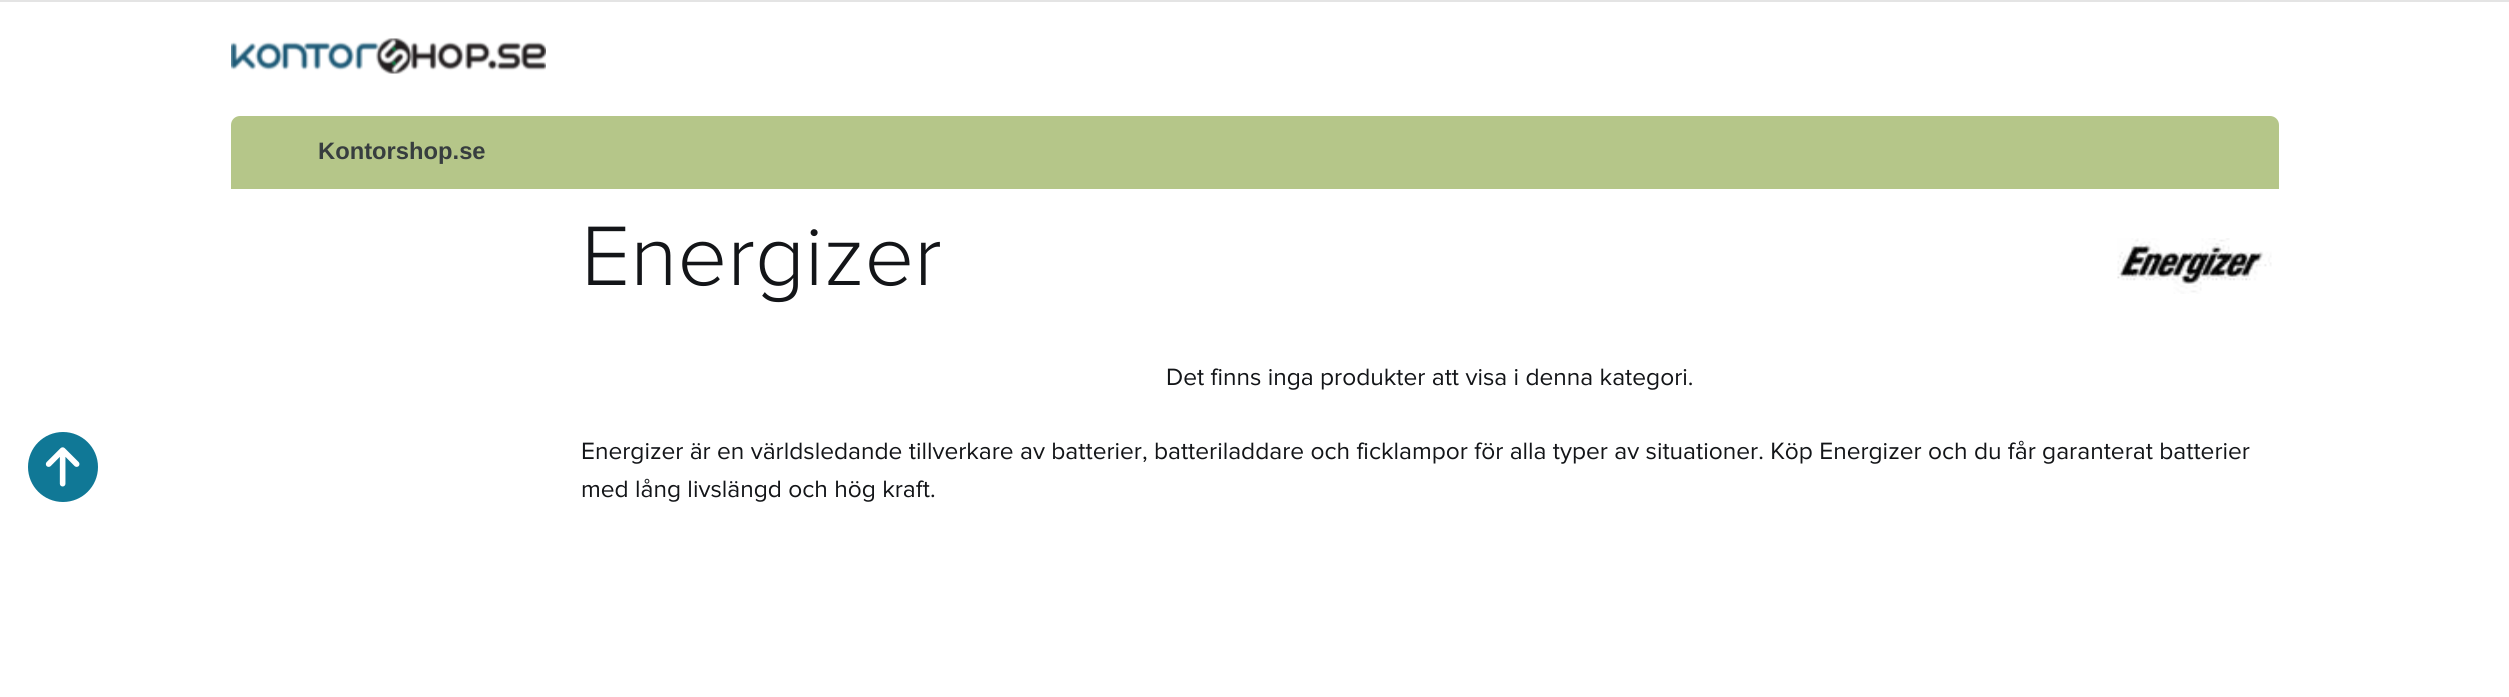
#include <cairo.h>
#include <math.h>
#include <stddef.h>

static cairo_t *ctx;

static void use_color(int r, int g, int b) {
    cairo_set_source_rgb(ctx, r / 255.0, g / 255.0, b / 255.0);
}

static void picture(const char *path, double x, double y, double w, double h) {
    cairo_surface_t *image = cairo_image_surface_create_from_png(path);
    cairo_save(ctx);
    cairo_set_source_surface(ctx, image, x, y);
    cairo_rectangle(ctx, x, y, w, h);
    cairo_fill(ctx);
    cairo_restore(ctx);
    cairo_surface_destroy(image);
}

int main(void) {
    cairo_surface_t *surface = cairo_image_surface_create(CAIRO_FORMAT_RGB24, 2509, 697);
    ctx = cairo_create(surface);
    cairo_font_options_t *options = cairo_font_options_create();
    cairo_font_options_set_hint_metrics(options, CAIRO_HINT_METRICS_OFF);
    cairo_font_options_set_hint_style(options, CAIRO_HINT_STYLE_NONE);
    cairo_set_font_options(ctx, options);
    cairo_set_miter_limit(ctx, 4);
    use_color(255, 255, 255);
    cairo_paint(ctx);
    use_color(228, 228, 228);
    cairo_rectangle(ctx, 0, 0, 2509, 2);
    cairo_fill(ctx);
    picture("img1.png", 231, 38, 315, 36);
    use_color(181, 198, 137);
    cairo_new_path(ctx);
    cairo_move_to(ctx, 240, 116);
    cairo_line_to(ctx, 2270, 116);
    cairo_curve_to(ctx, 2275, 116, 2279, 120, 2279, 125);
    cairo_line_to(ctx, 2279, 189);
    cairo_line_to(ctx, 231, 189);
    cairo_line_to(ctx, 231, 125);
    cairo_curve_to(ctx, 231, 120, 235, 116, 240, 116);
    cairo_close_path(ctx);
    cairo_fill(ctx);
    cairo_select_font_face(ctx, "Liberation Sans", CAIRO_FONT_SLANT_NORMAL, CAIRO_FONT_WEIGHT_BOLD);
    cairo_set_font_size(ctx, 23.75);
    use_color(55, 61, 63);
    cairo_move_to(ctx, 318, 159);
    cairo_show_text(ctx, "Kontorshop.se");
    use_color(16, 120, 150);
    cairo_new_path(ctx);
    cairo_arc(ctx, 63, 467, 35, 0, 2 * M_PI);
    cairo_fill(ctx);
    picture("img2.png", 45, 447, 35, 40);
    cairo_select_font_face(ctx, "Proxima Nova Light", CAIRO_FONT_SLANT_NORMAL, CAIRO_FONT_WEIGHT_NORMAL);
    cairo_set_font_size(ctx, 87.5);
    use_color(19, 21, 24);
    cairo_move_to(ctx, 581, 285);
    cairo_show_text(ctx, "Energizer");
    picture("img3.png", 2117, 238, 155, 56);
    cairo_select_font_face(ctx, "Proxima Nova", CAIRO_FONT_SLANT_NORMAL, CAIRO_FONT_WEIGHT_NORMAL);
    cairo_set_font_size(ctx, 24.5);
    cairo_move_to(ctx, 1166, 385);
    cairo_show_text(ctx, "Det finns inga produkter att visa i denna kategori.");
    cairo_move_to(ctx, 581, 459);
    cairo_show_text(ctx, "Energizer är en världsledande tillverkare av batterier, batteriladdare och ficklampor för alla typer av situationer. Köp Energizer och du får garanterat batterier");
    cairo_move_to(ctx, 581, 497);
    cairo_show_text(ctx, "med lång livslängd och hög kraft.");
    cairo_surface_write_to_png(surface, "result.png");
    cairo_font_options_destroy(options);
    cairo_destroy(ctx);
    cairo_surface_destroy(surface);
    return 0;
}
